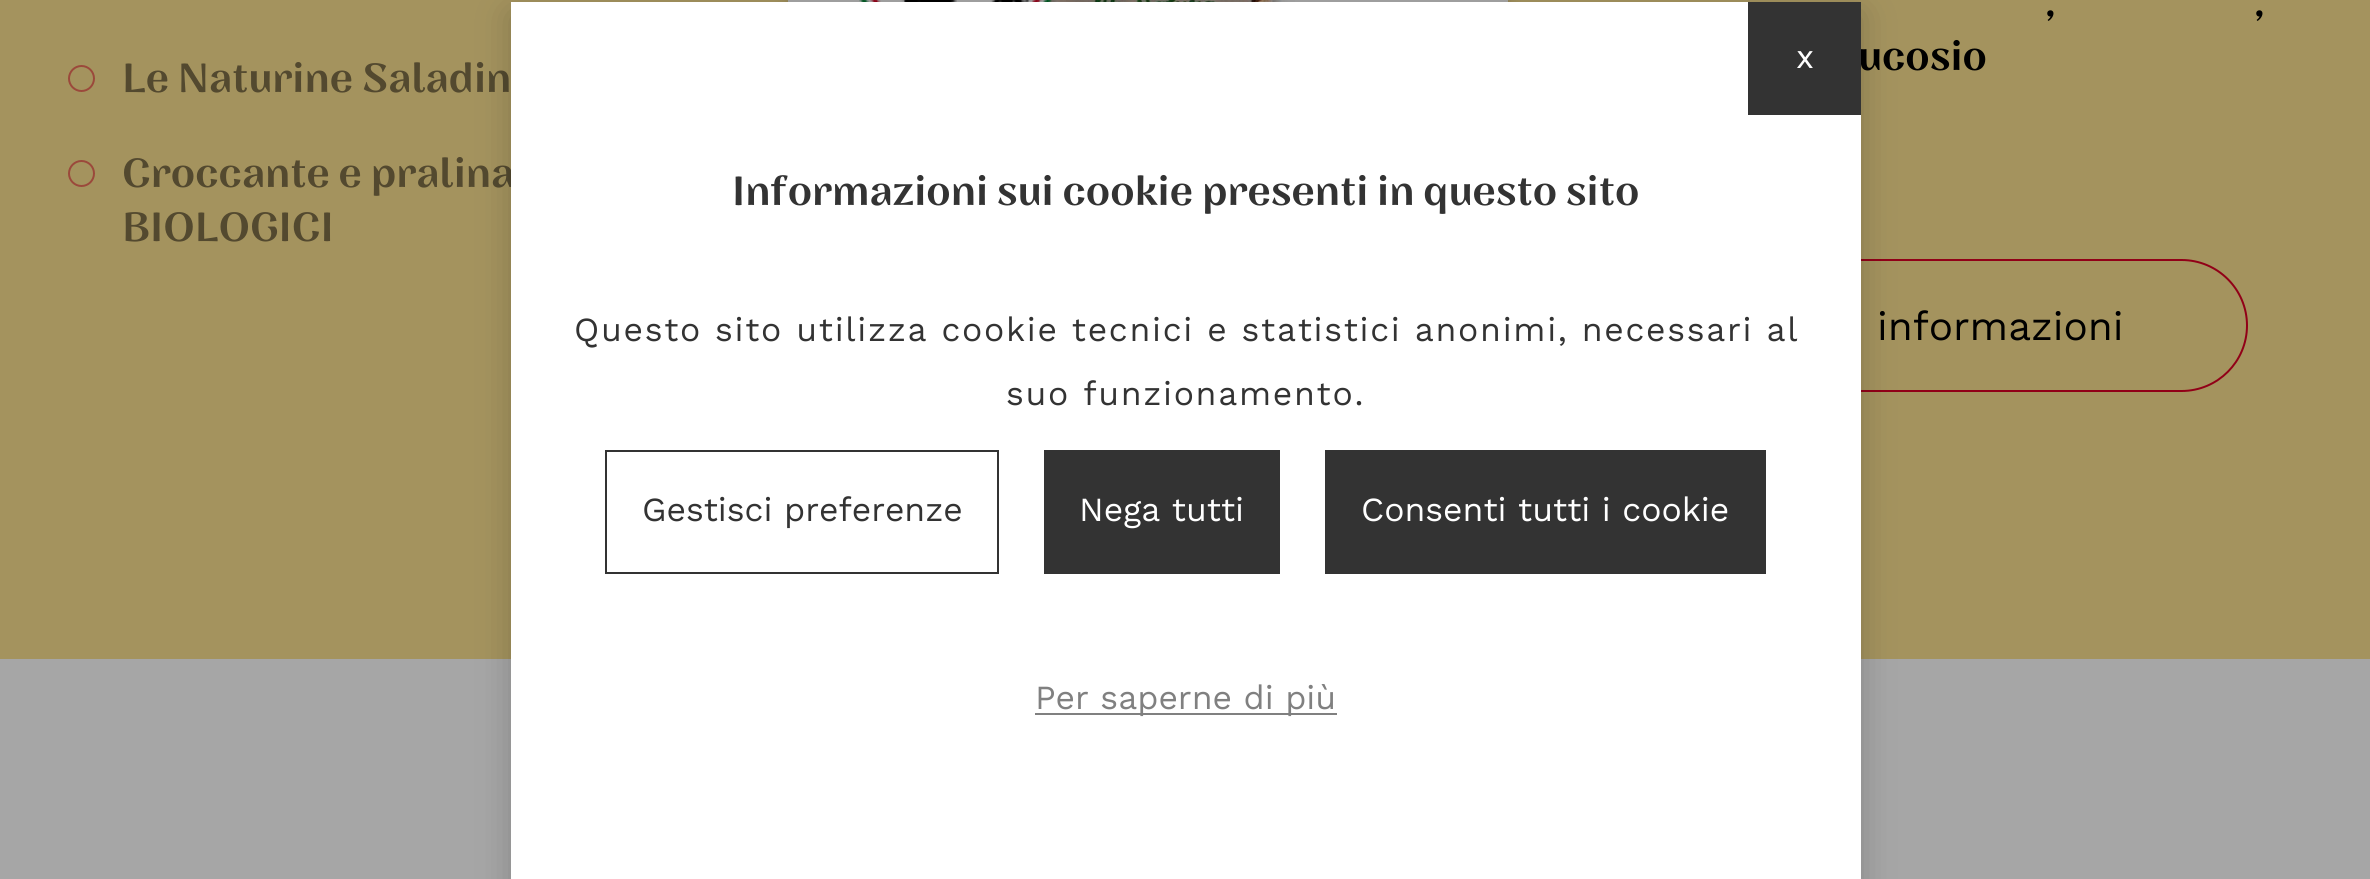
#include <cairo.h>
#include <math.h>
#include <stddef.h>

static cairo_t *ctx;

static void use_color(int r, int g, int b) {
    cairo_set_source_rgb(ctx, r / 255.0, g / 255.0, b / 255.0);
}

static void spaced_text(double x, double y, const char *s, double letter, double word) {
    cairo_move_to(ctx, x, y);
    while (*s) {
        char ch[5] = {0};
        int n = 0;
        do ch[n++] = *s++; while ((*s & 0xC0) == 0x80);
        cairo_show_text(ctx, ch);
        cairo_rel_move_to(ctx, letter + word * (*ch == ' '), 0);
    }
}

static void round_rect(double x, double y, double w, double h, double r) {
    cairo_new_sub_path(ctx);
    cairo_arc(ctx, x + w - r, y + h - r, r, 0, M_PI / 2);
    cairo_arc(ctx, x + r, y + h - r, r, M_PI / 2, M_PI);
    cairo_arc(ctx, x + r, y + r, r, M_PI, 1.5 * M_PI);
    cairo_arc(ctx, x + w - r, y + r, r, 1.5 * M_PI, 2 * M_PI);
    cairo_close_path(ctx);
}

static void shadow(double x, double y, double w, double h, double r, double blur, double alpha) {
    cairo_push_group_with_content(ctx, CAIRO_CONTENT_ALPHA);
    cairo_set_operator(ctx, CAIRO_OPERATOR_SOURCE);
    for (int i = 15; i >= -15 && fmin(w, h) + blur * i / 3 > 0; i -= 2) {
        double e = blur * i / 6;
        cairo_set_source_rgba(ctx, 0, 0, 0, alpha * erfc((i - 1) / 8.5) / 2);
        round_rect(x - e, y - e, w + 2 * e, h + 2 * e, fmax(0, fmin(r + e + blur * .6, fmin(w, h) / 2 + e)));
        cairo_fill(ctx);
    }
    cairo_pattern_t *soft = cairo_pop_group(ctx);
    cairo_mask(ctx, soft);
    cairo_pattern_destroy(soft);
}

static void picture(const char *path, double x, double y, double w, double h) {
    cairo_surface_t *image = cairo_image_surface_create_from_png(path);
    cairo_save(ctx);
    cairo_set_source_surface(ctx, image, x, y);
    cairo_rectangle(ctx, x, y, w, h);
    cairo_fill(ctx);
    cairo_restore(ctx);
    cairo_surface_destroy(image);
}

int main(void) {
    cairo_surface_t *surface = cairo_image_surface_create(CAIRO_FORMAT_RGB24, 2370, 879);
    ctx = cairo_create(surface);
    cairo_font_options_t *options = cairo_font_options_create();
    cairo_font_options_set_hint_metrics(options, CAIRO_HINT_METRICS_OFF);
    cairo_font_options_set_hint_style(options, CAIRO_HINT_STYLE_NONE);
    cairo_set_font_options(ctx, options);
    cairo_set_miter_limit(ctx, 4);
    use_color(164, 147, 94);
    cairo_paint(ctx);
    cairo_arc(ctx, 81.5, 78.5, 12.5, 0, 2 * M_PI);
    use_color(155, 73, 59);
    cairo_stroke(ctx);
    cairo_select_font_face(ctx, "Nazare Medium", CAIRO_FONT_SLANT_NORMAL, CAIRO_FONT_WEIGHT_NORMAL);
    cairo_set_font_size(ctx, 40.5);
    use_color(83, 73, 47);
    cairo_move_to(ctx, 122, 92);
    cairo_show_text(ctx, "Le Naturine Saladin");
    cairo_new_path(ctx);
    cairo_arc(ctx, 81.5, 173.5, 12.5, 0, 2 * M_PI);
    use_color(155, 73, 59);
    cairo_stroke(ctx);
    use_color(83, 73, 47);
    cairo_move_to(ctx, 122, 187);
    cairo_show_text(ctx, "Croccante e pralina");
    cairo_move_to(ctx, 122, 241);
    cairo_show_text(ctx, "BIOLOGICI");
    use_color(0, 0, 0);
    shadow(788, -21, 720, 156, 0, 7, 0.15);
    use_color(166, 166, 166);
    cairo_rectangle(ctx, 788, 0, 720, 2);
    cairo_fill(ctx);
    picture("img2.png", 1037, 0, 258, 2);
    picture("img1.png", 859, 0, 195, 2);
    use_color(0, 0, 0);
    cairo_move_to(ctx, 2045, 16);
    cairo_show_text(ctx, ",");
    cairo_move_to(ctx, 2254, 16);
    cairo_show_text(ctx, ",");
    cairo_move_to(ctx, 1858, 70);
    cairo_show_text(ctx, "ucosio");
    round_rect(1585, 260, 662, 131, 65.5);
    use_color(145, 0, 23);
    cairo_stroke(ctx);
    cairo_select_font_face(ctx, "Work Sans", CAIRO_FONT_SLANT_NORMAL, CAIRO_FONT_WEIGHT_NORMAL);
    use_color(0, 0, 0);
    cairo_move_to(ctx, 1877, 340);
    cairo_show_text(ctx, "informazioni");
    use_color(166, 166, 166);
    cairo_rectangle(ctx, 0, 659, 2370, 220);
    cairo_fill(ctx);
    use_color(0, 0, 0);
    shadow(511, 14, 1350, 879, 0, 17, 0.2);
    use_color(255, 255, 255);
    cairo_rectangle(ctx, 511, 2, 1350, 877);
    cairo_fill(ctx);
    use_color(51, 51, 51);
    cairo_rectangle(ctx, 1748, 2, 113, 113);
    cairo_fill(ctx);
    cairo_set_font_size(ctx, 33.75);
    use_color(255, 255, 255);
    cairo_move_to(ctx, 1796, 68);
    cairo_show_text(ctx, "x");
    cairo_select_font_face(ctx, "Nazare Medium", CAIRO_FONT_SLANT_NORMAL, CAIRO_FONT_WEIGHT_NORMAL);
    cairo_set_font_size(ctx, 40.5);
    use_color(51, 51, 51);
    cairo_move_to(ctx, 732, 205);
    cairo_show_text(ctx, "Informazioni sui cookie presenti in questo sito");
    cairo_select_font_face(ctx, "Work Sans", CAIRO_FONT_SLANT_NORMAL, CAIRO_FONT_WEIGHT_NORMAL);
    cairo_set_font_size(ctx, 33.75);
    spaced_text(574, 341, "Questo sito utilizza cookie tecnici e statistici anonimi, necessari al", 1.7, 0);
    spaced_text(1006, 405, "suo funzionamento.", 1.7, 0);
    cairo_rectangle(ctx, 606, 451, 392, 122);
    cairo_stroke(ctx);
    cairo_move_to(ctx, 642, 521);
    cairo_show_text(ctx, "Gestisci preferenze");
    cairo_rectangle(ctx, 1044, 450, 236, 124);
    cairo_fill(ctx);
    use_color(255, 255, 255);
    cairo_move_to(ctx, 1079, 521);
    cairo_show_text(ctx, "Nega tutti");
    use_color(51, 51, 51);
    cairo_rectangle(ctx, 1325, 450, 441, 124);
    cairo_fill(ctx);
    use_color(255, 255, 255);
    cairo_move_to(ctx, 1361, 521);
    cairo_show_text(ctx, "Consenti tutti i cookie");
    use_color(128, 128, 128);
    cairo_rectangle(ctx, 1035, 713, 302, 2);
    cairo_fill(ctx);
    cairo_move_to(ctx, 1035, 709);
    cairo_show_text(ctx, "Per saperne di più");
    cairo_surface_write_to_png(surface, "result.png");
    cairo_font_options_destroy(options);
    cairo_destroy(ctx);
    cairo_surface_destroy(surface);
    return 0;
}
